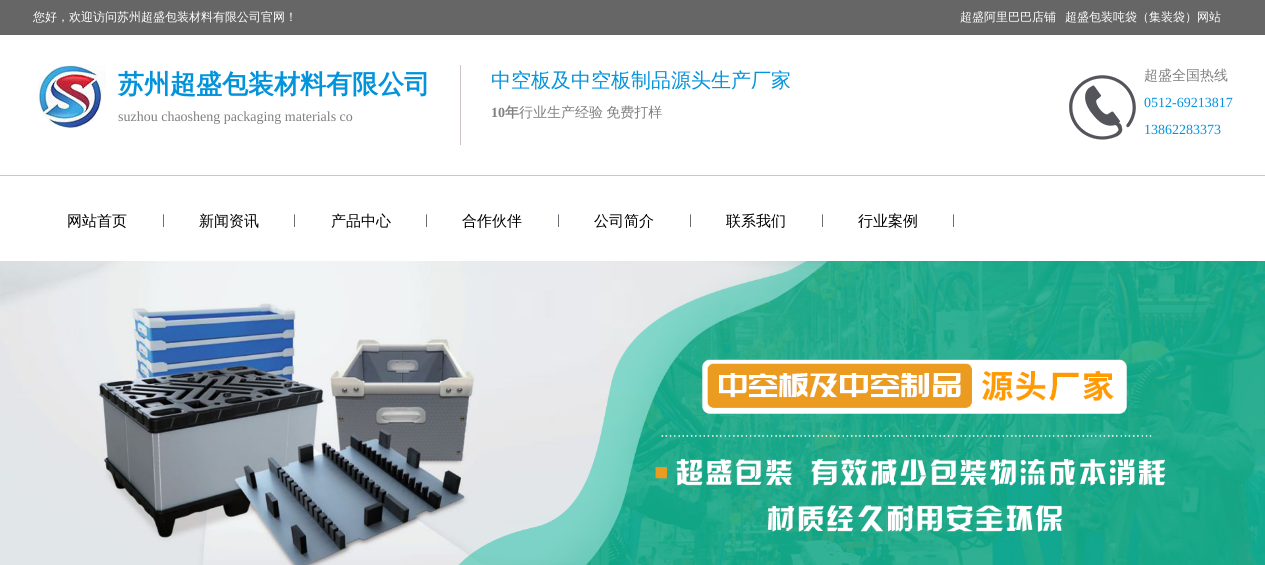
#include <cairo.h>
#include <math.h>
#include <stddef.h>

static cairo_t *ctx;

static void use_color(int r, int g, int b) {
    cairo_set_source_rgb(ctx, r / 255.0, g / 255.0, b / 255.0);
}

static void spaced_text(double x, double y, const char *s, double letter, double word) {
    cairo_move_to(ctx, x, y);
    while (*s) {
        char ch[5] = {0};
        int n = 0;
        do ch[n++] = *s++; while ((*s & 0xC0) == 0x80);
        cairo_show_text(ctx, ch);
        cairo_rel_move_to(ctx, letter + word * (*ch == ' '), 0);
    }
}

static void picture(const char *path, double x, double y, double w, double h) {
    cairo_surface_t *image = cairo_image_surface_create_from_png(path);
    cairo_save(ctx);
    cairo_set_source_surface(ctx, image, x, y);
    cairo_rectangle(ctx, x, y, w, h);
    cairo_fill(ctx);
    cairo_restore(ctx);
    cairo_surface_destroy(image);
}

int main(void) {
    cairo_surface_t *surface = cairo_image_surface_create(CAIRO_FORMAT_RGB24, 1265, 565);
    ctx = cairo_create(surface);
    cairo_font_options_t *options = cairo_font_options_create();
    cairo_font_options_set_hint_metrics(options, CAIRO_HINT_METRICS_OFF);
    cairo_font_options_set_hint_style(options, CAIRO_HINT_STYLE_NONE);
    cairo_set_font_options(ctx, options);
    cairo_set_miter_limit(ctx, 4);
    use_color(255, 255, 255);
    cairo_paint(ctx);
    use_color(102, 102, 102);
    cairo_rectangle(ctx, 0, 0, 1265, 35);
    cairo_fill(ctx);
    cairo_select_font_face(ctx, "WenQuanYi Zen Hei Medium", CAIRO_FONT_SLANT_NORMAL, CAIRO_FONT_WEIGHT_NORMAL);
    cairo_set_font_size(ctx, 12);
    use_color(255, 255, 255);
    cairo_move_to(ctx, 33, 21);
    cairo_show_text(ctx, "您好，欢迎访问苏州超盛包装材料有限公司官网！");
    cairo_move_to(ctx, 960, 21);
    cairo_show_text(ctx, "超盛阿里巴巴店铺");
    cairo_move_to(ctx, 1065, 21);
    cairo_show_text(ctx, "超盛包装吨袋（集装袋）网站");
    picture("img1.png", 38, 65, 68, 63);
    cairo_select_font_face(ctx, "WenQuanYi Zen Hei", CAIRO_FONT_SLANT_NORMAL, CAIRO_FONT_WEIGHT_BOLD);
    cairo_set_font_size(ctx, 26);
    use_color(2, 147, 219);
    cairo_move_to(ctx, 118, 93);
    cairo_show_text(ctx, "苏州超盛包装材料有限公司");
    cairo_select_font_face(ctx, "Liberation Serif", CAIRO_FONT_SLANT_NORMAL, CAIRO_FONT_WEIGHT_NORMAL);
    cairo_set_font_size(ctx, 14);
    use_color(128, 128, 128);
    cairo_move_to(ctx, 118, 121);
    cairo_show_text(ctx, "suzhou chaosheng packaging materials co");
    use_color(203, 197, 197);
    cairo_rectangle(ctx, 460, 65, 1, 80);
    cairo_fill(ctx);
    cairo_select_font_face(ctx, "WenQuanYi Zen Hei Medium", CAIRO_FONT_SLANT_NORMAL, CAIRO_FONT_WEIGHT_NORMAL);
    cairo_set_font_size(ctx, 20);
    use_color(2, 147, 219);
    cairo_move_to(ctx, 491, 87);
    cairo_show_text(ctx, "中空板及中空板制品源头生产厂家");
    cairo_select_font_face(ctx, "Liberation Serif", CAIRO_FONT_SLANT_NORMAL, CAIRO_FONT_WEIGHT_BOLD);
    cairo_set_font_size(ctx, 14);
    use_color(128, 128, 128);
    cairo_move_to(ctx, 491, 117);
    cairo_show_text(ctx, "10");
    cairo_select_font_face(ctx, "WenQuanYi Zen Hei", CAIRO_FONT_SLANT_NORMAL, CAIRO_FONT_WEIGHT_BOLD);
    cairo_move_to(ctx, 505, 117);
    cairo_show_text(ctx, "年");
    cairo_select_font_face(ctx, "WenQuanYi Zen Hei Medium", CAIRO_FONT_SLANT_NORMAL, CAIRO_FONT_WEIGHT_NORMAL);
    spaced_text(519, 117, "行业生产经验 免费打样", 0, -1);
    picture("img2.png", 1069, 75, 67, 65);
    cairo_move_to(ctx, 1144, 80);
    cairo_show_text(ctx, "超盛全国热线");
    cairo_select_font_face(ctx, "Liberation Serif", CAIRO_FONT_SLANT_NORMAL, CAIRO_FONT_WEIGHT_NORMAL);
    use_color(2, 147, 219);
    cairo_move_to(ctx, 1144, 107);
    cairo_show_text(ctx, "0512-69213817");
    cairo_move_to(ctx, 1144, 134);
    cairo_show_text(ctx, "13862283373");
    use_color(203, 197, 197);
    cairo_rectangle(ctx, 0, 175, 1265, 1);
    cairo_fill(ctx);
    cairo_select_font_face(ctx, "WenQuanYi Zen Hei Medium", CAIRO_FONT_SLANT_NORMAL, CAIRO_FONT_WEIGHT_NORMAL);
    cairo_set_font_size(ctx, 15);
    use_color(0, 0, 0);
    cairo_move_to(ctx, 67, 226);
    cairo_show_text(ctx, "网站首页");
    cairo_select_font_face(ctx, "Liberation Serif", CAIRO_FONT_SLANT_NORMAL, CAIRO_FONT_WEIGHT_NORMAL);
    cairo_set_font_size(ctx, 14);
    use_color(42, 51, 60);
    cairo_move_to(ctx, 162, 224);
    cairo_show_text(ctx, "|");
    cairo_select_font_face(ctx, "WenQuanYi Zen Hei Medium", CAIRO_FONT_SLANT_NORMAL, CAIRO_FONT_WEIGHT_NORMAL);
    cairo_set_font_size(ctx, 15);
    use_color(0, 0, 0);
    cairo_move_to(ctx, 199, 226);
    cairo_show_text(ctx, "新闻资讯");
    cairo_select_font_face(ctx, "Liberation Serif", CAIRO_FONT_SLANT_NORMAL, CAIRO_FONT_WEIGHT_NORMAL);
    cairo_set_font_size(ctx, 14);
    use_color(42, 51, 60);
    cairo_move_to(ctx, 293, 224);
    cairo_show_text(ctx, "|");
    cairo_select_font_face(ctx, "WenQuanYi Zen Hei Medium", CAIRO_FONT_SLANT_NORMAL, CAIRO_FONT_WEIGHT_NORMAL);
    cairo_set_font_size(ctx, 15);
    use_color(0, 0, 0);
    cairo_move_to(ctx, 331, 226);
    cairo_show_text(ctx, "产品中心");
    cairo_select_font_face(ctx, "Liberation Serif", CAIRO_FONT_SLANT_NORMAL, CAIRO_FONT_WEIGHT_NORMAL);
    cairo_set_font_size(ctx, 14);
    use_color(42, 51, 60);
    cairo_move_to(ctx, 425, 224);
    cairo_show_text(ctx, "|");
    cairo_select_font_face(ctx, "WenQuanYi Zen Hei Medium", CAIRO_FONT_SLANT_NORMAL, CAIRO_FONT_WEIGHT_NORMAL);
    cairo_set_font_size(ctx, 15);
    use_color(0, 0, 0);
    cairo_move_to(ctx, 462, 226);
    cairo_show_text(ctx, "合作伙伴");
    cairo_select_font_face(ctx, "Liberation Serif", CAIRO_FONT_SLANT_NORMAL, CAIRO_FONT_WEIGHT_NORMAL);
    cairo_set_font_size(ctx, 14);
    use_color(42, 51, 60);
    cairo_move_to(ctx, 557, 224);
    cairo_show_text(ctx, "|");
    cairo_select_font_face(ctx, "WenQuanYi Zen Hei Medium", CAIRO_FONT_SLANT_NORMAL, CAIRO_FONT_WEIGHT_NORMAL);
    cairo_set_font_size(ctx, 15);
    use_color(0, 0, 0);
    cairo_move_to(ctx, 594, 226);
    cairo_show_text(ctx, "公司简介");
    cairo_select_font_face(ctx, "Liberation Serif", CAIRO_FONT_SLANT_NORMAL, CAIRO_FONT_WEIGHT_NORMAL);
    cairo_set_font_size(ctx, 14);
    use_color(42, 51, 60);
    cairo_move_to(ctx, 689, 224);
    cairo_show_text(ctx, "|");
    cairo_select_font_face(ctx, "WenQuanYi Zen Hei Medium", CAIRO_FONT_SLANT_NORMAL, CAIRO_FONT_WEIGHT_NORMAL);
    cairo_set_font_size(ctx, 15);
    use_color(0, 0, 0);
    cairo_move_to(ctx, 726, 226);
    cairo_show_text(ctx, "联系我们");
    cairo_select_font_face(ctx, "Liberation Serif", CAIRO_FONT_SLANT_NORMAL, CAIRO_FONT_WEIGHT_NORMAL);
    cairo_set_font_size(ctx, 14);
    use_color(42, 51, 60);
    cairo_move_to(ctx, 821, 224);
    cairo_show_text(ctx, "|");
    cairo_select_font_face(ctx, "WenQuanYi Zen Hei Medium", CAIRO_FONT_SLANT_NORMAL, CAIRO_FONT_WEIGHT_NORMAL);
    cairo_set_font_size(ctx, 15);
    use_color(0, 0, 0);
    cairo_move_to(ctx, 858, 226);
    cairo_show_text(ctx, "行业案例");
    cairo_select_font_face(ctx, "Liberation Serif", CAIRO_FONT_SLANT_NORMAL, CAIRO_FONT_WEIGHT_NORMAL);
    cairo_set_font_size(ctx, 14);
    use_color(42, 51, 60);
    cairo_move_to(ctx, 952, 224);
    cairo_show_text(ctx, "|");
    picture("img3.png", 0, 261, 1265, 304);
    cairo_surface_write_to_png(surface, "result.png");
    cairo_font_options_destroy(options);
    cairo_destroy(ctx);
    cairo_surface_destroy(surface);
    return 0;
}
